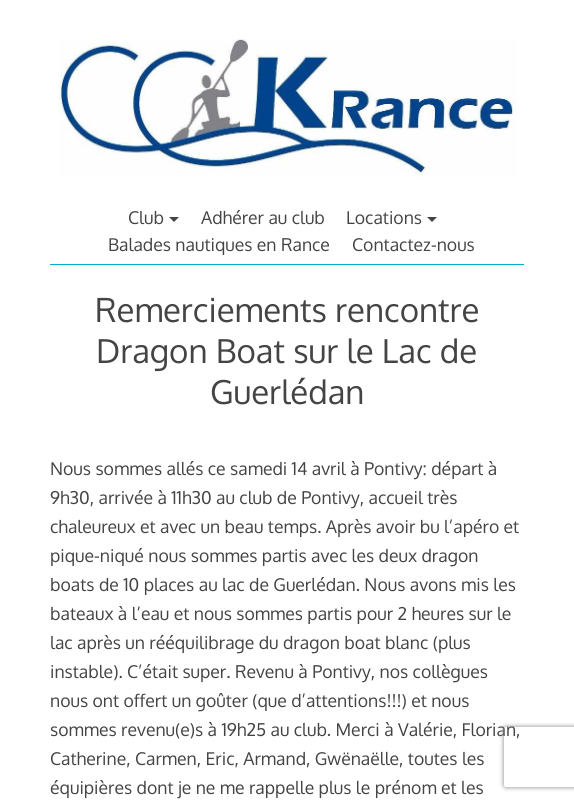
#include <cairo.h>
#include <math.h>
#include <stddef.h>

static cairo_t *ctx;

static void use_color(int r, int g, int b) {
    cairo_set_source_rgb(ctx, r / 255.0, g / 255.0, b / 255.0);
}

static void round_rect(double x, double y, double w, double h, double r) {
    cairo_new_sub_path(ctx);
    cairo_arc(ctx, x + w - r, y + h - r, r, 0, M_PI / 2);
    cairo_arc(ctx, x + r, y + h - r, r, M_PI / 2, M_PI);
    cairo_arc(ctx, x + r, y + r, r, M_PI, 1.5 * M_PI);
    cairo_arc(ctx, x + w - r, y + r, r, 1.5 * M_PI, 2 * M_PI);
    cairo_close_path(ctx);
}

static void shadow(double x, double y, double w, double h, double r, double blur, double alpha) {
    cairo_push_group_with_content(ctx, CAIRO_CONTENT_ALPHA);
    cairo_set_operator(ctx, CAIRO_OPERATOR_SOURCE);
    for (int i = 15; i >= -15 && fmin(w, h) + blur * i / 3 > 0; i -= 2) {
        double e = blur * i / 6;
        cairo_set_source_rgba(ctx, 0, 0, 0, alpha * erfc((i - 1) / 8.5) / 2);
        round_rect(x - e, y - e, w + 2 * e, h + 2 * e, fmax(0, fmin(r + e + blur * .6, fmin(w, h) / 2 + e)));
        cairo_fill(ctx);
    }
    cairo_pattern_t *soft = cairo_pop_group(ctx);
    cairo_mask(ctx, soft);
    cairo_pattern_destroy(soft);
}

static void picture(const char *path, double x, double y, double w, double h) {
    cairo_surface_t *image = cairo_image_surface_create_from_png(path);
    cairo_save(ctx);
    cairo_set_source_surface(ctx, image, x, y);
    cairo_rectangle(ctx, x, y, w, h);
    cairo_fill(ctx);
    cairo_restore(ctx);
    cairo_surface_destroy(image);
}

int main(void) {
    cairo_surface_t *surface = cairo_image_surface_create(CAIRO_FORMAT_RGB24, 574, 801);
    ctx = cairo_create(surface);
    cairo_font_options_t *options = cairo_font_options_create();
    cairo_font_options_set_hint_metrics(options, CAIRO_HINT_METRICS_OFF);
    cairo_font_options_set_hint_style(options, CAIRO_HINT_STYLE_NONE);
    cairo_set_font_options(ctx, options);
    cairo_set_miter_limit(ctx, 4);
    use_color(255, 255, 255);
    cairo_paint(ctx);
    use_color(0, 176, 204);
    cairo_rectangle(ctx, 50, 264, 474, 1);
    cairo_fill(ctx);
    picture("img1.png", 58, 39, 459, 138);
    cairo_select_font_face(ctx, "Oxygen", CAIRO_FONT_SLANT_NORMAL, CAIRO_FONT_WEIGHT_NORMAL);
    cairo_set_font_size(ctx, 17.6);
    use_color(68, 68, 68);
    cairo_move_to(ctx, 128, 224);
    cairo_show_text(ctx, "Club");
    cairo_new_path(ctx);
    cairo_move_to(ctx, 169, 217);
    cairo_line_to(ctx, 179, 217);
    cairo_line_to(ctx, 174, 222);
    cairo_close_path(ctx);
    cairo_fill(ctx);
    cairo_move_to(ctx, 201, 224);
    cairo_show_text(ctx, "Adhérer au club");
    cairo_move_to(ctx, 346, 224);
    cairo_show_text(ctx, "Locations");
    cairo_new_path(ctx);
    cairo_move_to(ctx, 427, 217);
    cairo_line_to(ctx, 437, 217);
    cairo_line_to(ctx, 432, 222);
    cairo_close_path(ctx);
    cairo_fill(ctx);
    cairo_move_to(ctx, 108, 251);
    cairo_show_text(ctx, "Balades nautiques en Rance");
    cairo_move_to(ctx, 352, 251);
    cairo_show_text(ctx, "Contactez-nous");
    cairo_set_font_size(ctx, 33);
    cairo_move_to(ctx, 95, 322);
    cairo_show_text(ctx, "Remerciements rencontre");
    cairo_move_to(ctx, 96, 363);
    cairo_show_text(ctx, "Dragon Boat sur le Lac de");
    cairo_move_to(ctx, 210, 404);
    cairo_show_text(ctx, "Guerlédan");
    cairo_set_font_size(ctx, 17.6);
    cairo_move_to(ctx, 50, 475);
    cairo_show_text(ctx, "Nous sommes allés ce samedi 14 avril à Pontivy: départ à");
    cairo_move_to(ctx, 50, 504);
    cairo_show_text(ctx, "9h30, arrivée à 11h30 au club de Pontivy, accueil très");
    cairo_move_to(ctx, 50, 533);
    cairo_show_text(ctx, "chaleureux et avec un beau temps. Après avoir bu l’apéro et");
    cairo_move_to(ctx, 50, 562);
    cairo_show_text(ctx, "pique-niqué nous sommes partis avec les deux dragon");
    cairo_move_to(ctx, 50, 591);
    cairo_show_text(ctx, "boats de 10 places au lac de Guerlédan. Nous avons mis les");
    cairo_move_to(ctx, 50, 620);
    cairo_show_text(ctx, "bateaux à l’eau et nous sommes partis pour 2 heures sur le");
    cairo_move_to(ctx, 50, 649);
    cairo_show_text(ctx, "lac après un rééquilibrage du dragon boat blanc (plus");
    cairo_move_to(ctx, 50, 678);
    cairo_show_text(ctx, "instable). C’était super. Revenu à Pontivy, nos collègues");
    cairo_move_to(ctx, 50, 707);
    cairo_show_text(ctx, "nous ont offert un goûter (que d’attentions!!!) et nous");
    cairo_move_to(ctx, 50, 736);
    cairo_show_text(ctx, "sommes revenu(e)s à 19h25 au club. Merci à Valérie, Florian,");
    cairo_move_to(ctx, 50, 765);
    cairo_show_text(ctx, "Catherine, Carmen, Eric, Armand, Gwënaëlle, toutes les");
    cairo_move_to(ctx, 50, 794);
    cairo_show_text(ctx, "équipières dont je ne me rappelle plus le prénom et les");
    cairo_save(ctx);
    cairo_set_fill_rule(ctx, CAIRO_FILL_RULE_EVEN_ODD);
    cairo_new_path(ctx);
    cairo_move_to(ctx, 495, 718);
    cairo_line_to(ctx, 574, 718);
    cairo_line_to(ctx, 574, 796);
    cairo_line_to(ctx, 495, 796);
    cairo_close_path(ctx);
    cairo_move_to(ctx, 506, 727);
    cairo_line_to(ctx, 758, 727);
    cairo_curve_to(ctx, 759, 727, 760, 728, 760, 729);
    cairo_line_to(ctx, 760, 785);
    cairo_curve_to(ctx, 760, 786, 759, 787, 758, 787);
    cairo_line_to(ctx, 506, 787);
    cairo_curve_to(ctx, 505, 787, 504, 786, 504, 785);
    cairo_line_to(ctx, 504, 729);
    cairo_curve_to(ctx, 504, 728, 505, 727, 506, 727);
    cairo_close_path(ctx);
    cairo_clip(ctx);
    use_color(128, 128, 128);
    shadow(504, 727, 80, 60, 2, 2.5, 1);
    cairo_restore(ctx);
    cairo_surface_write_to_png(surface, "result.png");
    cairo_font_options_destroy(options);
    cairo_destroy(ctx);
    cairo_surface_destroy(surface);
    return 0;
}
